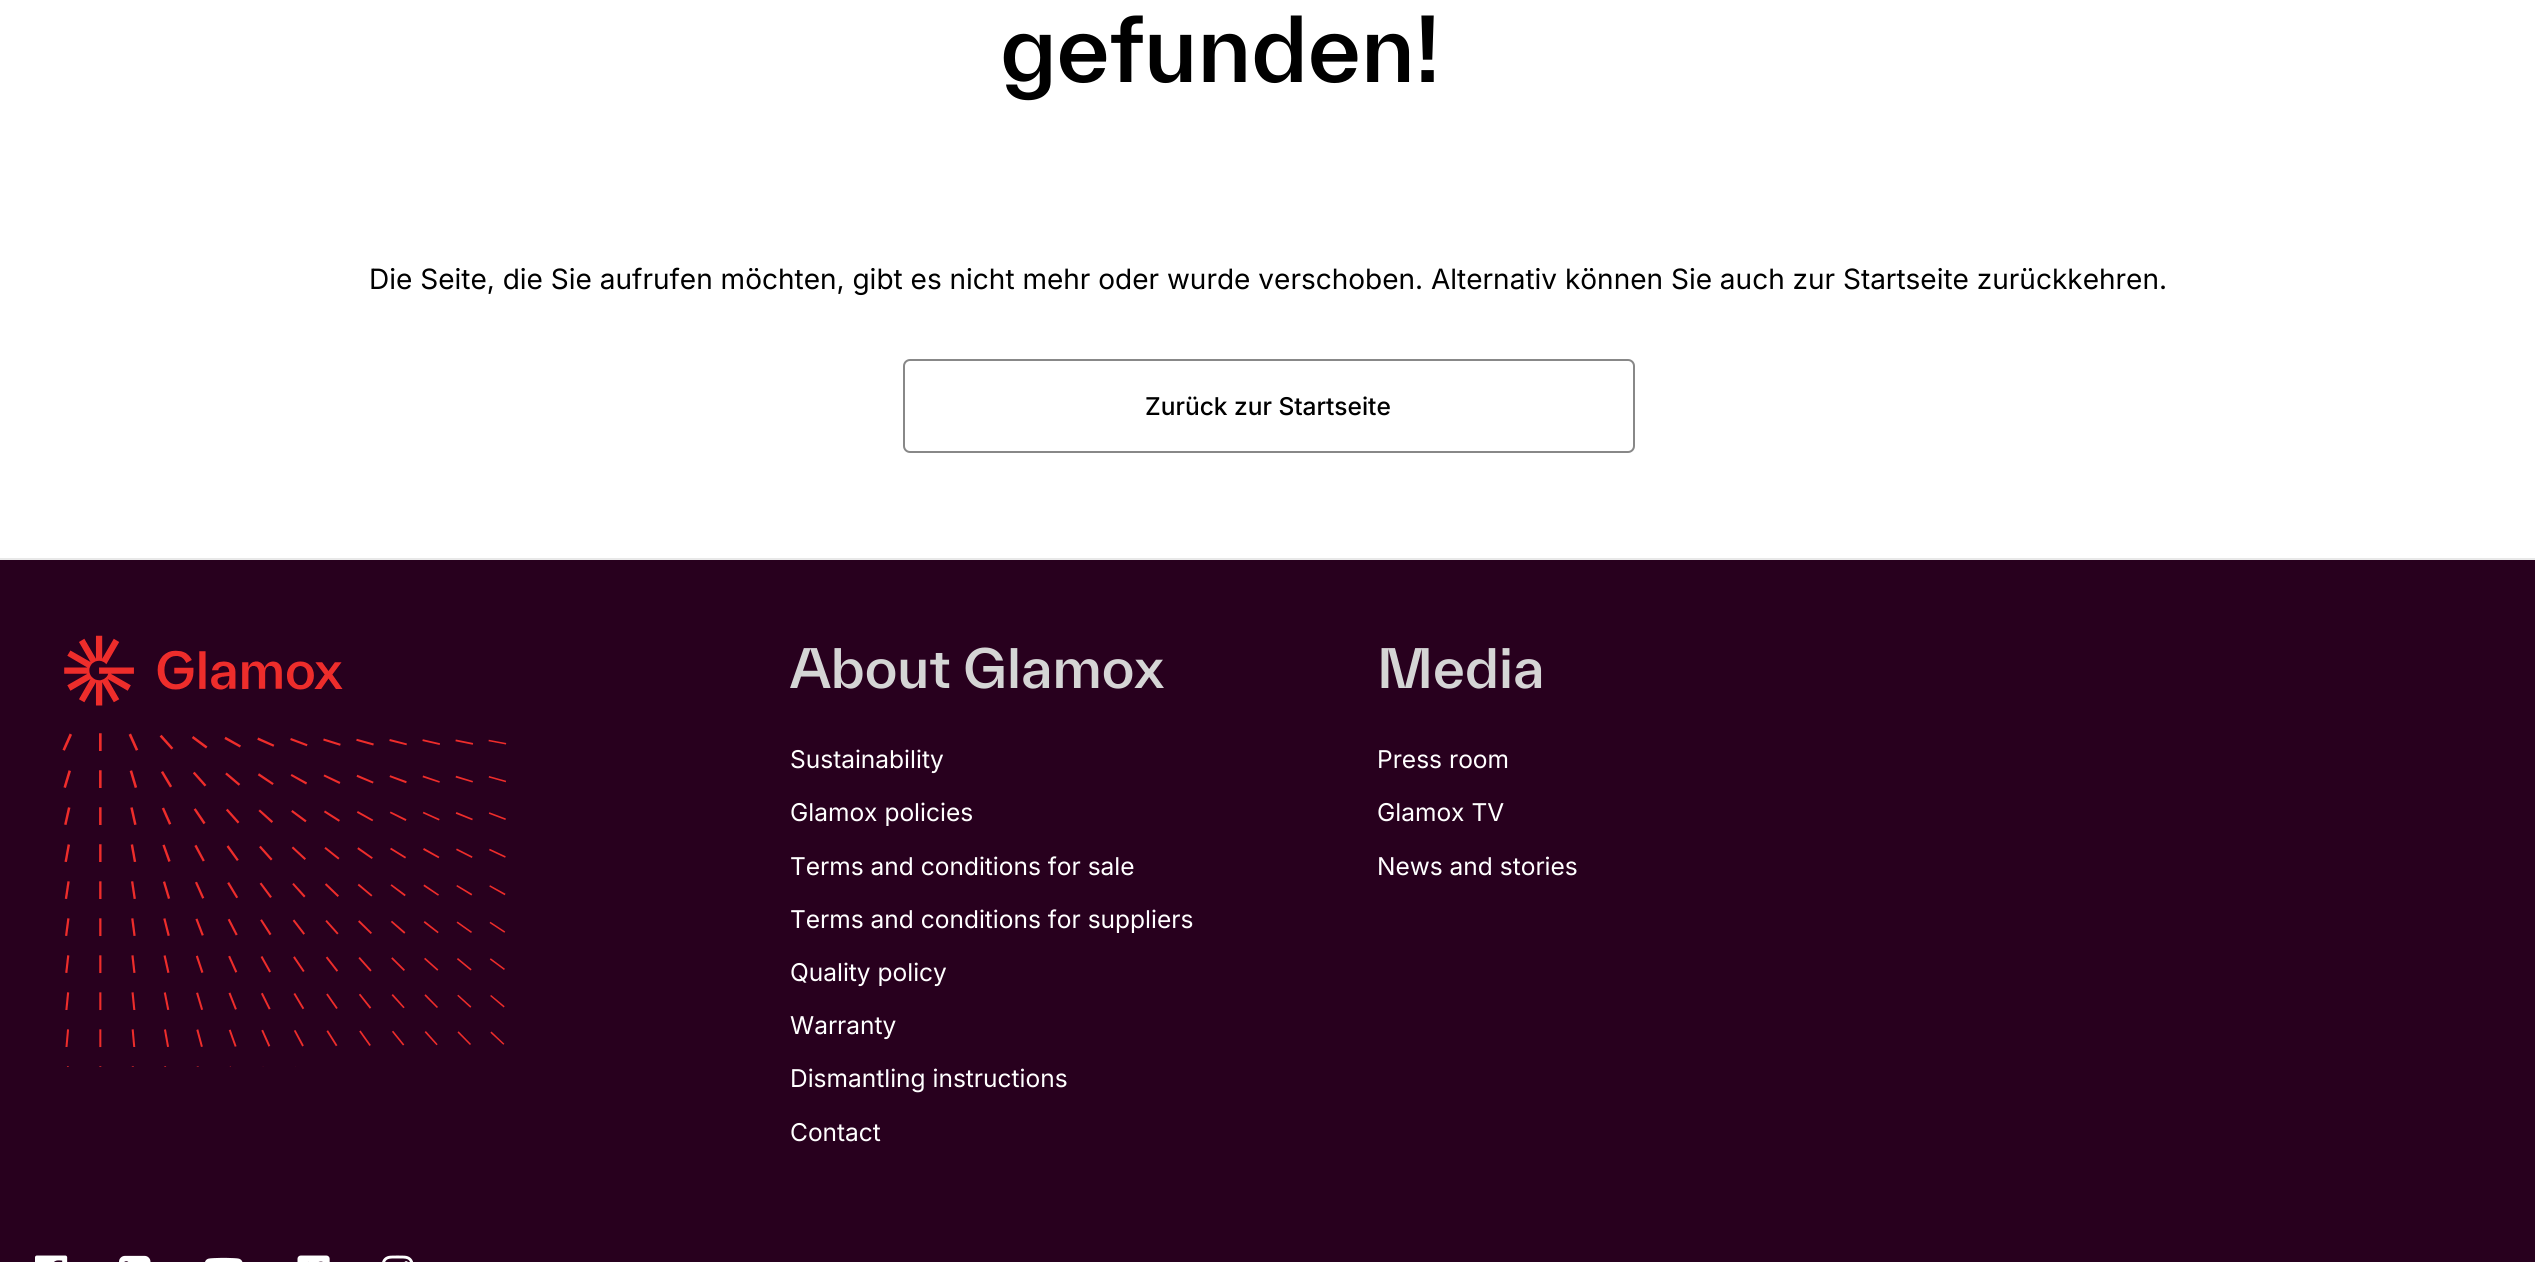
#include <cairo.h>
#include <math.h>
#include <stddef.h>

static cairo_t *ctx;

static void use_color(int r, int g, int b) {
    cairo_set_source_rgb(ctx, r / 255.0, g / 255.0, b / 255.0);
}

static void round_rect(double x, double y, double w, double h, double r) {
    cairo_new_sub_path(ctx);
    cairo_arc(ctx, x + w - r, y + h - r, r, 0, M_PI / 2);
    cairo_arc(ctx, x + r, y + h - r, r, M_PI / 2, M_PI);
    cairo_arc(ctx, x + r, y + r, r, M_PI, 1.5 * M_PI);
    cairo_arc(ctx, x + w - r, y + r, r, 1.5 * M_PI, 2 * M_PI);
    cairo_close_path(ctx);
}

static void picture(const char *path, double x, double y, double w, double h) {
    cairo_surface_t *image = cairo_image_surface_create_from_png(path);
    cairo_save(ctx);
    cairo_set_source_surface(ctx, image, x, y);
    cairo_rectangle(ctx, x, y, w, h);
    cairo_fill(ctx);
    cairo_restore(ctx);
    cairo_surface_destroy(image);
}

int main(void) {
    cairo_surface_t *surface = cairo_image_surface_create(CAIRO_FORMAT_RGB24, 2535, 1262);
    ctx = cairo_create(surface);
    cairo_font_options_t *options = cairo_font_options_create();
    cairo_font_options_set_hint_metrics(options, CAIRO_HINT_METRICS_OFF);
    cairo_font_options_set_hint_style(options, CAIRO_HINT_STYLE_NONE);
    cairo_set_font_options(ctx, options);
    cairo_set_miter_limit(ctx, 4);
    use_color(255, 255, 255);
    cairo_paint(ctx);
    cairo_select_font_face(ctx, "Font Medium", CAIRO_FONT_SLANT_NORMAL, CAIRO_FONT_WEIGHT_NORMAL);
    cairo_set_font_size(ctx, 87.5);
    use_color(0, 0, 0);
    cairo_move_to(ctx, 1000, 82);
    cairo_show_text(ctx, "gefunden!");
    cairo_select_font_face(ctx, "Inter", CAIRO_FONT_SLANT_NORMAL, CAIRO_FONT_WEIGHT_NORMAL);
    cairo_set_font_size(ctx, 28);
    cairo_move_to(ctx, 369, 289);
    cairo_show_text(ctx, "Die Seite, die Sie aufrufen möchten, gibt es nicht mehr oder wurde verschoben. Alternativ können Sie auch zur Startseite zurückkehren.");
    round_rect(904, 360, 730, 92, 6);
    use_color(136, 136, 136);
    cairo_stroke(ctx);
    cairo_select_font_face(ctx, "Inter Medium", CAIRO_FONT_SLANT_NORMAL, CAIRO_FONT_WEIGHT_NORMAL);
    cairo_set_font_size(ctx, 24.5);
    use_color(0, 0, 0);
    cairo_move_to(ctx, 1145, 415);
    cairo_show_text(ctx, "Zurück zur Startseite");
    use_color(40, 0, 30);
    cairo_rectangle(ctx, 0, 560, 2535, 702);
    cairo_fill(ctx);
    use_color(232, 232, 232);
    cairo_rectangle(ctx, 0, 558, 2535, 2);
    cairo_fill(ctx);
    picture("img1.png", 62, 635, 445, 432);
    cairo_select_font_face(ctx, "Font Medium", CAIRO_FONT_SLANT_NORMAL, CAIRO_FONT_WEIGHT_NORMAL);
    cairo_set_font_size(ctx, 52.5);
    use_color(213, 213, 213);
    cairo_move_to(ctx, 790, 688);
    cairo_show_text(ctx, "About Glamox");
    cairo_select_font_face(ctx, "Inter", CAIRO_FONT_SLANT_NORMAL, CAIRO_FONT_WEIGHT_NORMAL);
    cairo_set_font_size(ctx, 24.5);
    use_color(255, 255, 255);
    cairo_move_to(ctx, 790, 768);
    cairo_show_text(ctx, "Sustainability");
    cairo_move_to(ctx, 790, 821);
    cairo_show_text(ctx, "Glamox policies");
    cairo_move_to(ctx, 790, 875);
    cairo_show_text(ctx, "Terms and conditions for sale");
    cairo_move_to(ctx, 790, 928);
    cairo_show_text(ctx, "Terms and conditions for suppliers");
    cairo_move_to(ctx, 790, 981);
    cairo_show_text(ctx, "Quality policy");
    cairo_move_to(ctx, 790, 1034);
    cairo_show_text(ctx, "Warranty");
    cairo_move_to(ctx, 790, 1087);
    cairo_show_text(ctx, "Dismantling instructions");
    cairo_move_to(ctx, 790, 1141);
    cairo_show_text(ctx, "Contact");
    cairo_select_font_face(ctx, "Font Medium", CAIRO_FONT_SLANT_NORMAL, CAIRO_FONT_WEIGHT_NORMAL);
    cairo_set_font_size(ctx, 52.5);
    use_color(213, 213, 213);
    cairo_move_to(ctx, 1377, 688);
    cairo_show_text(ctx, "Media");
    cairo_select_font_face(ctx, "Inter", CAIRO_FONT_SLANT_NORMAL, CAIRO_FONT_WEIGHT_NORMAL);
    cairo_set_font_size(ctx, 24.5);
    use_color(255, 255, 255);
    cairo_move_to(ctx, 1377, 768);
    cairo_show_text(ctx, "Press room");
    cairo_move_to(ctx, 1377, 821);
    cairo_show_text(ctx, "Glamox TV");
    cairo_move_to(ctx, 1377, 875);
    cairo_show_text(ctx, "News and stories");
    picture("img2.png", 35, 1255, 33, 7);
    picture("img3.png", 119, 1255, 32, 7);
    picture("img4.png", 205, 1257, 38, 5);
    picture("img5.png", 297, 1255, 33, 7);
    picture("img6.png", 382, 1255, 31, 7);
    cairo_surface_write_to_png(surface, "result.png");
    cairo_font_options_destroy(options);
    cairo_destroy(ctx);
    cairo_surface_destroy(surface);
    return 0;
}
